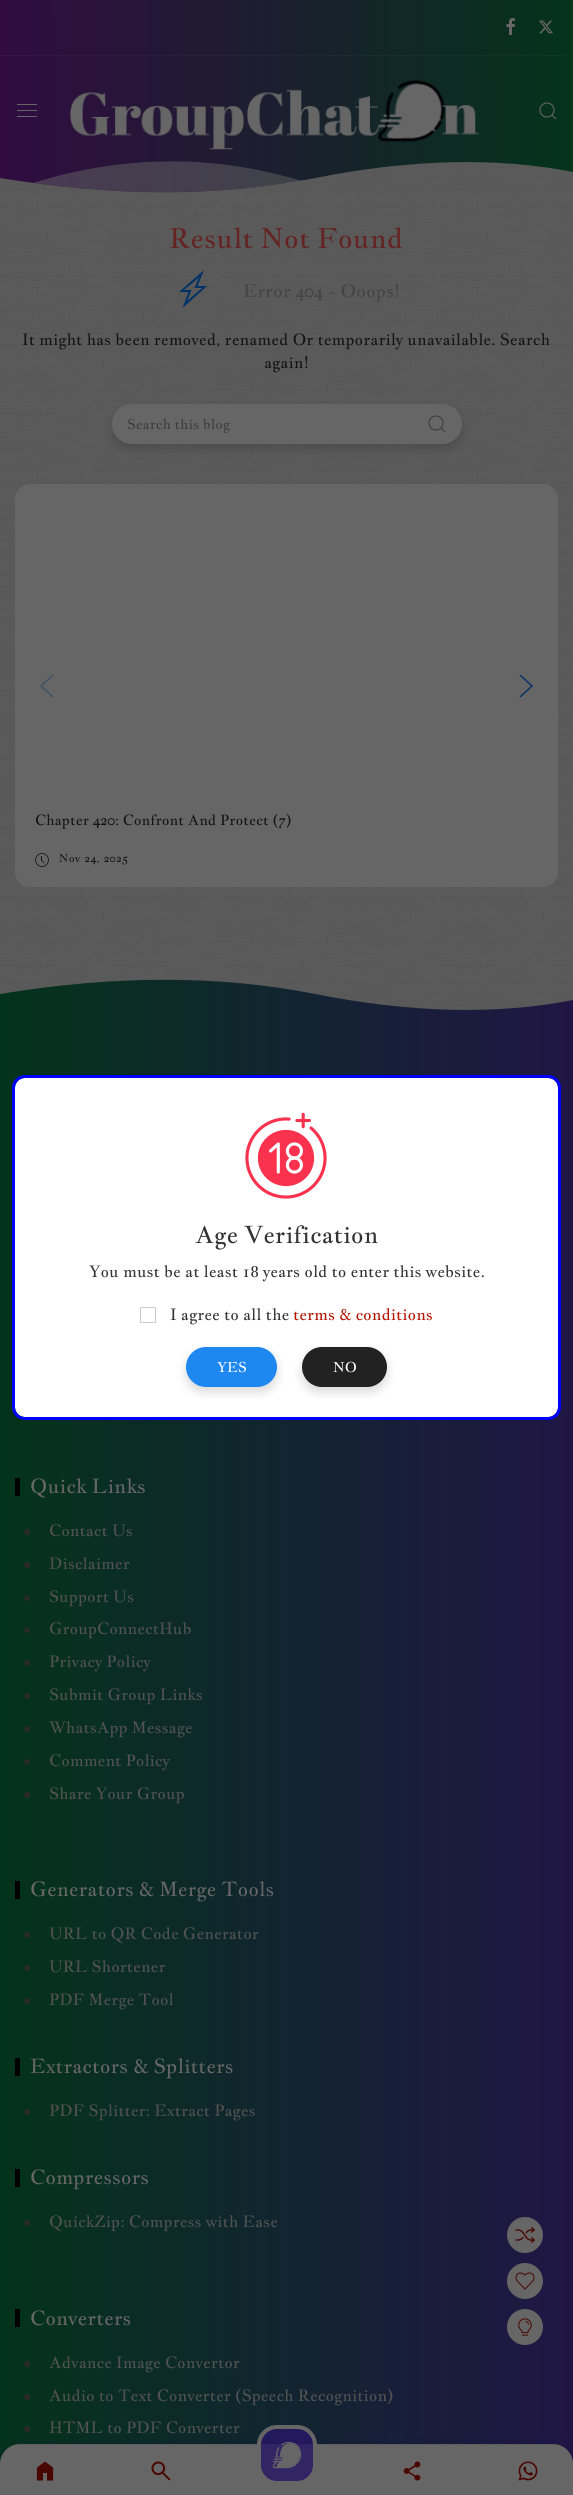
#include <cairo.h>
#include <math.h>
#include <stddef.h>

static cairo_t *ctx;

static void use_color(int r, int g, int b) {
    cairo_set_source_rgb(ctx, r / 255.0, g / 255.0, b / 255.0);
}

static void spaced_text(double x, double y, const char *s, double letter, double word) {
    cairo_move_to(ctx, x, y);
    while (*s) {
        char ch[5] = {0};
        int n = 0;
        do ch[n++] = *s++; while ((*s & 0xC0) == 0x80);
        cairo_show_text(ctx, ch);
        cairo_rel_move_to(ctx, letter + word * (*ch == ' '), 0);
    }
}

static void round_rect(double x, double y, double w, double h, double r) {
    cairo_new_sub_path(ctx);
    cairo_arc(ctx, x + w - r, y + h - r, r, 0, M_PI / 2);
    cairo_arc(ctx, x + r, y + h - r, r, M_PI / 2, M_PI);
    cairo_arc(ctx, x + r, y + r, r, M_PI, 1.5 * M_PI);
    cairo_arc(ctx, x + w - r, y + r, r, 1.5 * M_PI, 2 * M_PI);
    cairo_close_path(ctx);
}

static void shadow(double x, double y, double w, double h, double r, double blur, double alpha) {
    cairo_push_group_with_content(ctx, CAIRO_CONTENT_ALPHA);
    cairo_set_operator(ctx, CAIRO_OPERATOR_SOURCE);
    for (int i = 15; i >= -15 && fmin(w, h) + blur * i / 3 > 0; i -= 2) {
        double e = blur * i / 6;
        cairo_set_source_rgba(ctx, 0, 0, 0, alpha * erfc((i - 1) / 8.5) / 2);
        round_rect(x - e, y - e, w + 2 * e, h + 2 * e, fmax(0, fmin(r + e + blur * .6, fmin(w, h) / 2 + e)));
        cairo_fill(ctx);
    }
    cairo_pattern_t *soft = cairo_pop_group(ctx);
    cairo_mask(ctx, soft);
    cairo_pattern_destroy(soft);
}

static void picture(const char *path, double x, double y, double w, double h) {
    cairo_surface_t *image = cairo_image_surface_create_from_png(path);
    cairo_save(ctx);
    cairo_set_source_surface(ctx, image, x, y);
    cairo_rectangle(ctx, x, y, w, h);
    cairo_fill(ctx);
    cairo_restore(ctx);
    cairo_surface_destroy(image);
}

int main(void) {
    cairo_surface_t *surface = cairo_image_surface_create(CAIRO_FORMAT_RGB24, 573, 2495);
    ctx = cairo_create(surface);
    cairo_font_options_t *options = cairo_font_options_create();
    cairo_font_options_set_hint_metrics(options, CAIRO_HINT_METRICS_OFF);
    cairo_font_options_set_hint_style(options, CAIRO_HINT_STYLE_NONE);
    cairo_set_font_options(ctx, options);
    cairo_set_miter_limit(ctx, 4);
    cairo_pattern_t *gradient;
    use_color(95, 95, 95);
    cairo_paint(ctx);
    picture("img1.png", 0, 195, 573, 782);
    gradient = cairo_pattern_create_linear(0, 98, 573, 97);
    cairo_pattern_add_color_stop_rgba(gradient, 0, 0.192, 0.047, 0.255, 1);
    cairo_pattern_add_color_stop_rgba(gradient, 1, 0.016, 0.2, 0.106, 1);
    cairo_set_source(ctx, gradient);
    cairo_pattern_destroy(gradient);
    cairo_rectangle(ctx, 0, 0, 573, 161);
    cairo_fill(ctx);
    cairo_set_source_rgba(ctx, 0.4, 0.4, 0.4, 0.08);
    cairo_rectangle(ctx, 0, 55, 573, 1);
    cairo_fill(ctx);
    picture("img2.png", 506, 18, 9, 17);
    picture("img3.png", 539, 20, 14, 14);
    use_color(102, 102, 102);
    cairo_rectangle(ctx, 17, 104, 20, 1);
    cairo_fill(ctx);
    cairo_rectangle(ctx, 17, 110, 20, 1);
    cairo_fill(ctx);
    cairo_rectangle(ctx, 17, 116, 20, 1);
    cairo_fill(ctx);
    picture("img4.png", 69, 80, 411, 70);
    cairo_arc(ctx, 547, 110, 7, 0, 2 * M_PI);
    cairo_set_line_width(ctx, 1.1);
    cairo_stroke(ctx);
    cairo_new_path(ctx);
    cairo_move_to(ctx, 552, 115);
    cairo_line_to(ctx, 556, 119);
    cairo_close_path(ctx);
    cairo_stroke(ctx);
    picture("img5.png", 0, 162, 573, 33);
    cairo_save(ctx);
    cairo_rectangle(ctx, 0, 161, 573, 34);
    cairo_clip(ctx);
    gradient = cairo_pattern_create_linear(0, 155, 573, 155);
    cairo_pattern_add_color_stop_rgba(gradient, 0, 0.192, 0.047, 0.255, 1);
    cairo_pattern_add_color_stop_rgba(gradient, 1, 0.016, 0.2, 0.106, 1);
    cairo_set_source(ctx, gradient);
    cairo_pattern_destroy(gradient);
    cairo_new_path(ctx);
    cairo_move_to(ctx, 0, 155);
    cairo_line_to(ctx, 0, 178);
    cairo_curve_to(ctx, 115, 197, 219, 197, 315, 178);
    cairo_curve_to(ctx, 411, 159, 497, 157, 573, 172);
    cairo_line_to(ctx, 573, 155);
    cairo_close_path(ctx);
    cairo_fill(ctx);
    cairo_restore(ctx);
    cairo_set_source_rgba(ctx, 0.4, 0.4, 0.4, 0.5);
    cairo_new_path(ctx);
    cairo_move_to(ctx, 302, 181);
    cairo_curve_to(ctx, 212, 154, 123, 155, 33, 183);
    cairo_curve_to(ctx, 130, 196, 219, 195, 302, 181);
    cairo_close_path(ctx);
    cairo_fill(ctx);
    cairo_select_font_face(ctx, "Jacques Francois", CAIRO_FONT_SLANT_NORMAL, CAIRO_FONT_WEIGHT_NORMAL);
    cairo_set_font_size(ctx, 28);
    use_color(100, 36, 36);
    cairo_move_to(ctx, 169, 248);
    cairo_show_text(ctx, "Result Not Found");
    use_color(0, 49, 102);
    cairo_new_path(ctx);
    cairo_move_to(ctx, 182.5, 308);
    cairo_line_to(ctx, 188.5, 292);
    cairo_line_to(ctx, 179, 292);
    cairo_line_to(ctx, 204, 270);
    cairo_line_to(ctx, 197.5, 286);
    cairo_line_to(ctx, 207, 286);
    cairo_close_path(ctx);
    cairo_move_to(ctx, 191.5, 290);
    cairo_line_to(ctx, 187, 301);
    cairo_line_to(ctx, 202, 288);
    cairo_line_to(ctx, 194.5, 288);
    cairo_line_to(ctx, 199, 277.5);
    cairo_line_to(ctx, 184, 290);
    cairo_close_path(ctx);
    cairo_fill(ctx);
    cairo_set_font_size(ctx, 18);
    use_color(68, 68, 68);
    cairo_move_to(ctx, 243, 297);
    cairo_show_text(ctx, "Error 404 - Ooops!");
    cairo_set_font_size(ctx, 16);
    use_color(20, 20, 20);
    cairo_move_to(ctx, 22, 345);
    cairo_show_text(ctx, "It might has been removed, renamed Or temporarily unavailable. Search");
    cairo_move_to(ctx, 264, 368);
    cairo_show_text(ctx, "again!");
    use_color(0, 0, 0);
    shadow(112, 409, 350, 40, 20, 5, 0.15);
    use_color(102, 102, 102);
    round_rect(112, 404, 350, 40, 20);
    cairo_fill(ctx);
    cairo_set_font_size(ctx, 14);
    use_color(61, 61, 61);
    cairo_move_to(ctx, 127, 429);
    cairo_show_text(ctx, "Search this blog");
    cairo_new_path(ctx);
    cairo_arc(ctx, 436, 423, 7, 0, 2 * M_PI);
    cairo_stroke(ctx);
    cairo_new_path(ctx);
    cairo_move_to(ctx, 441, 428);
    cairo_line_to(ctx, 445, 432);
    cairo_close_path(ctx);
    cairo_stroke(ctx);
    use_color(102, 102, 102);
    round_rect(15, 484, 543, 403, 15);
    cairo_fill(ctx);
    cairo_new_path(ctx);
    cairo_move_to(ctx, 53, 675);
    cairo_line_to(ctx, 41, 686);
    cairo_line_to(ctx, 53, 697);
    use_color(61, 81, 102);
    cairo_set_line_width(ctx, 1.4);
    cairo_stroke(ctx);
    cairo_new_path(ctx);
    cairo_move_to(ctx, 520, 697);
    cairo_line_to(ctx, 532, 686);
    cairo_line_to(ctx, 520, 675);
    use_color(0, 49, 102);
    cairo_stroke(ctx);
    cairo_set_font_size(ctx, 14.4);
    use_color(20, 20, 20);
    cairo_move_to(ctx, 35, 825);
    cairo_show_text(ctx, "Chapter 420: Confront And Protect (7)");
    picture("img6.png", 35, 853, 14, 14);
    cairo_set_font_size(ctx, 11);
    spaced_text(59, 862, "Nov 24, 2025", 0.5, 0);
    gradient = cairo_pattern_create_linear(0, 1917, 573, 1917);
    cairo_pattern_add_color_stop_rgba(gradient, 0, 0.016, 0.2, 0.106, 1);
    cairo_pattern_add_color_stop_rgba(gradient, 1, 0.125, 0.086, 0.271, 1);
    cairo_set_source(ctx, gradient);
    cairo_pattern_destroy(gradient);
    cairo_rectangle(ctx, 0, 1011, 573, 1453);
    cairo_fill(ctx);
    picture("img7.png", 0, 977, 573, 33);
    cairo_save(ctx);
    cairo_rectangle(ctx, 0, 977, 573, 34);
    cairo_clip(ctx);
    gradient = cairo_pattern_create_linear(0, 980, 573, 980);
    cairo_pattern_add_color_stop_rgba(gradient, 0, 0.016, 0.2, 0.106, 1);
    cairo_pattern_add_color_stop_rgba(gradient, 1, 0.125, 0.086, 0.271, 1);
    cairo_set_source(ctx, gradient);
    cairo_pattern_destroy(gradient);
    cairo_new_path(ctx);
    cairo_move_to(ctx, 0, 1017);
    cairo_line_to(ctx, 0, 994);
    cairo_curve_to(ctx, 115, 975, 219, 975, 315, 994);
    cairo_curve_to(ctx, 411, 1013, 497, 1015, 573, 1000);
    cairo_line_to(ctx, 573, 1017);
    cairo_close_path(ctx);
    cairo_fill(ctx);
    cairo_restore(ctx);
    use_color(0, 0, 0);
    cairo_rectangle(ctx, 15, 1478, 5, 18);
    cairo_fill(ctx);
    cairo_set_font_size(ctx, 20);
    use_color(102, 102, 102);
    cairo_move_to(ctx, 30, 1493);
    cairo_show_text(ctx, "Quick Links");
    use_color(41, 41, 41);
    cairo_new_path(ctx);
    cairo_arc(ctx, 27, 1532, 3, 0, 2 * M_PI);
    cairo_fill(ctx);
    cairo_set_font_size(ctx, 16);
    use_color(82, 82, 82);
    cairo_move_to(ctx, 49, 1536);
    cairo_show_text(ctx, "Contact Us");
    use_color(41, 41, 41);
    cairo_new_path(ctx);
    cairo_arc(ctx, 27, 1565, 3, 0, 2 * M_PI);
    cairo_fill(ctx);
    use_color(82, 82, 82);
    cairo_move_to(ctx, 49, 1569);
    cairo_show_text(ctx, "Disclaimer");
    use_color(41, 41, 41);
    cairo_new_path(ctx);
    cairo_arc(ctx, 27, 1598, 3, 0, 2 * M_PI);
    cairo_fill(ctx);
    use_color(82, 82, 82);
    cairo_move_to(ctx, 49, 1602);
    cairo_show_text(ctx, "Support Us");
    use_color(41, 41, 41);
    cairo_new_path(ctx);
    cairo_arc(ctx, 27, 1630, 3, 0, 2 * M_PI);
    cairo_fill(ctx);
    use_color(82, 82, 82);
    cairo_move_to(ctx, 49, 1634);
    cairo_show_text(ctx, "GroupConnectHub");
    use_color(41, 41, 41);
    cairo_new_path(ctx);
    cairo_arc(ctx, 27, 1663, 3, 0, 2 * M_PI);
    cairo_fill(ctx);
    use_color(82, 82, 82);
    cairo_move_to(ctx, 49, 1667);
    cairo_show_text(ctx, "Privacy Policy");
    use_color(41, 41, 41);
    cairo_new_path(ctx);
    cairo_arc(ctx, 27, 1696, 3, 0, 2 * M_PI);
    cairo_fill(ctx);
    use_color(82, 82, 82);
    cairo_move_to(ctx, 49, 1700);
    cairo_show_text(ctx, "Submit Group Links");
    use_color(41, 41, 41);
    cairo_new_path(ctx);
    cairo_arc(ctx, 27, 1729, 3, 0, 2 * M_PI);
    cairo_fill(ctx);
    use_color(82, 82, 82);
    cairo_move_to(ctx, 49, 1733);
    cairo_show_text(ctx, "WhatsApp Message");
    use_color(41, 41, 41);
    cairo_new_path(ctx);
    cairo_arc(ctx, 27, 1762, 3, 0, 2 * M_PI);
    cairo_fill(ctx);
    use_color(82, 82, 82);
    cairo_move_to(ctx, 49, 1766);
    cairo_show_text(ctx, "Comment Policy");
    use_color(41, 41, 41);
    cairo_new_path(ctx);
    cairo_arc(ctx, 27, 1795, 3, 0, 2 * M_PI);
    cairo_fill(ctx);
    use_color(82, 82, 82);
    cairo_move_to(ctx, 49, 1799);
    cairo_show_text(ctx, "Share Your Group");
    use_color(0, 0, 0);
    cairo_rectangle(ctx, 15, 1881, 5, 18);
    cairo_fill(ctx);
    cairo_set_font_size(ctx, 20);
    use_color(102, 102, 102);
    cairo_move_to(ctx, 30, 1896);
    cairo_show_text(ctx, "Generators & Merge Tools");
    use_color(41, 41, 41);
    cairo_new_path(ctx);
    cairo_arc(ctx, 27, 1935, 3, 0, 2 * M_PI);
    cairo_fill(ctx);
    cairo_set_font_size(ctx, 16);
    use_color(82, 82, 82);
    cairo_move_to(ctx, 49, 1939);
    cairo_show_text(ctx, "URL to QR Code Generator");
    use_color(41, 41, 41);
    cairo_new_path(ctx);
    cairo_arc(ctx, 27, 1968, 3, 0, 2 * M_PI);
    cairo_fill(ctx);
    use_color(82, 82, 82);
    cairo_move_to(ctx, 49, 1972);
    cairo_show_text(ctx, "URL Shortener");
    use_color(41, 41, 41);
    cairo_new_path(ctx);
    cairo_arc(ctx, 27, 2001, 3, 0, 2 * M_PI);
    cairo_fill(ctx);
    use_color(82, 82, 82);
    cairo_move_to(ctx, 49, 2005);
    cairo_show_text(ctx, "PDF Merge Tool");
    use_color(0, 0, 0);
    cairo_rectangle(ctx, 15, 2058, 5, 18);
    cairo_fill(ctx);
    cairo_set_font_size(ctx, 20);
    use_color(102, 102, 102);
    cairo_move_to(ctx, 30, 2073);
    cairo_show_text(ctx, "Extractors & Splitters");
    use_color(41, 41, 41);
    cairo_new_path(ctx);
    cairo_arc(ctx, 27, 2112, 3, 0, 2 * M_PI);
    cairo_fill(ctx);
    cairo_set_font_size(ctx, 16);
    use_color(82, 82, 82);
    cairo_move_to(ctx, 49, 2116);
    cairo_show_text(ctx, "PDF Splitter: Extract Pages");
    use_color(0, 0, 0);
    cairo_rectangle(ctx, 15, 2169, 5, 18);
    cairo_fill(ctx);
    cairo_set_font_size(ctx, 20);
    use_color(102, 102, 102);
    cairo_move_to(ctx, 30, 2184);
    cairo_show_text(ctx, "Compressors");
    use_color(41, 41, 41);
    cairo_new_path(ctx);
    cairo_arc(ctx, 27, 2223, 3, 0, 2 * M_PI);
    cairo_fill(ctx);
    cairo_set_font_size(ctx, 16);
    use_color(82, 82, 82);
    cairo_move_to(ctx, 49, 2227);
    cairo_show_text(ctx, "QuickZip: Compress with Ease");
    use_color(0, 0, 0);
    cairo_rectangle(ctx, 15, 2309, 5, 18);
    cairo_fill(ctx);
    cairo_set_font_size(ctx, 20);
    use_color(102, 102, 102);
    cairo_move_to(ctx, 30, 2325);
    cairo_show_text(ctx, "Converters");
    use_color(41, 41, 41);
    cairo_new_path(ctx);
    cairo_arc(ctx, 27, 2364, 3, 0, 2 * M_PI);
    cairo_fill(ctx);
    cairo_set_font_size(ctx, 16);
    use_color(82, 82, 82);
    cairo_move_to(ctx, 49, 2368);
    cairo_show_text(ctx, "Advance Image Convertor");
    use_color(41, 41, 41);
    cairo_new_path(ctx);
    cairo_arc(ctx, 27, 2397, 3, 0, 2 * M_PI);
    cairo_fill(ctx);
    use_color(82, 82, 82);
    cairo_move_to(ctx, 49, 2401);
    cairo_show_text(ctx, "Audio to Text Converter (Speech Recognition)");
    use_color(41, 41, 41);
    cairo_new_path(ctx);
    cairo_arc(ctx, 27, 2429, 3, 0, 2 * M_PI);
    cairo_fill(ctx);
    use_color(82, 82, 82);
    cairo_move_to(ctx, 49, 2433);
    cairo_show_text(ctx, "HTML to PDF Converter");
    use_color(255, 255, 255);
    round_rect(15, 1078, 543, 339, 10);
    cairo_fill(ctx);
    picture("img8.png", 245, 1112, 82, 87);
    use_color(0, 0, 0);
    shadow(186, 1352, 91, 40, 20, 5, 0.15);
    use_color(30, 135, 240);
    round_rect(186, 1347, 91, 40, 20);
    cairo_fill(ctx);
    use_color(0, 0, 0);
    shadow(302, 1352, 85, 40, 20, 5, 0.15);
    use_color(34, 34, 34);
    round_rect(302, 1347, 85, 40, 20);
    cairo_fill(ctx);
    round_rect(13.5, 1076.5, 546, 342, 11.5);
    use_color(0, 0, 255);
    cairo_set_line_width(ctx, 3);
    cairo_stroke(ctx);
    cairo_set_font_size(ctx, 24);
    use_color(51, 51, 51);
    cairo_move_to(ctx, 195, 1243);
    cairo_show_text(ctx, "Age Verification");
    cairo_set_font_size(ctx, 16);
    cairo_move_to(ctx, 89, 1277);
    cairo_show_text(ctx, "You must be at least 18 years old to enter this website.");
    cairo_rectangle(ctx, 140.5, 1307.5, 15, 15);
    use_color(204, 204, 204);
    cairo_set_line_width(ctx, 1);
    cairo_stroke(ctx);
    use_color(51, 51, 51);
    cairo_move_to(ctx, 170, 1320);
    cairo_show_text(ctx, "I agree to all the");
    use_color(181, 18, 0);
    cairo_move_to(ctx, 293, 1320);
    cairo_show_text(ctx, "terms & conditions");
    cairo_set_font_size(ctx, 14);
    use_color(255, 255, 255);
    cairo_move_to(ctx, 217, 1372);
    cairo_show_text(ctx, "YES");
    cairo_move_to(ctx, 333, 1372);
    cairo_show_text(ctx, "NO");
    use_color(102, 102, 102);
    cairo_new_path(ctx);
    cairo_arc(ctx, 525, 2235, 18, 0, 2 * M_PI);
    cairo_fill(ctx);
    picture("img9.png", 515, 2227, 20, 16);
    cairo_arc(ctx, 525, 2281, 18, 0, 2 * M_PI);
    cairo_fill(ctx);
    picture("img10.png", 515, 2272, 20, 18);
    cairo_arc(ctx, 525, 2327, 18, 0, 2 * M_PI);
    cairo_fill(ctx);
    picture("img11.png", 518, 2318, 14, 18);
    use_color(13, 15, 65);
    shadow(0, 2449, 573, 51, 20, 7.5, 0.51);
    use_color(102, 102, 102);
    cairo_new_path(ctx);
    cairo_move_to(ctx, 20, 2444);
    cairo_line_to(ctx, 553, 2444);
    cairo_curve_to(ctx, 564, 2444, 573, 2453, 573, 2464);
    cairo_line_to(ctx, 573, 2495);
    cairo_line_to(ctx, 0, 2495);
    cairo_line_to(ctx, 0, 2464);
    cairo_curve_to(ctx, 0, 2453, 9, 2444, 20, 2444);
    cairo_close_path(ctx);
    cairo_fill(ctx);
    cairo_set_source_rgba(ctx, 0.169, 0.169, 0.169, 0.14);
    cairo_rectangle(ctx, 10, 2444, 553, 1);
    cairo_fill(ctx);
    picture("img12.png", 36, 2461, 18, 20);
    picture("img13.png", 151, 2461, 20, 20);
    cairo_set_source_rgba(ctx, 0.157, 0.094, 0.4, 0.82);
    round_rect(259, 2427, 56, 56, 18);
    cairo_fill_preserve(ctx);
    use_color(102, 102, 102);
    cairo_set_line_width(ctx, 4);
    cairo_stroke(ctx);
    picture("img14.png", 272, 2441, 30, 28);
    picture("img15.png", 403, 2461, 18, 20);
    picture("img16.png", 518, 2461, 20, 20);
    cairo_surface_write_to_png(surface, "result.png");
    cairo_font_options_destroy(options);
    cairo_destroy(ctx);
    cairo_surface_destroy(surface);
    return 0;
}
